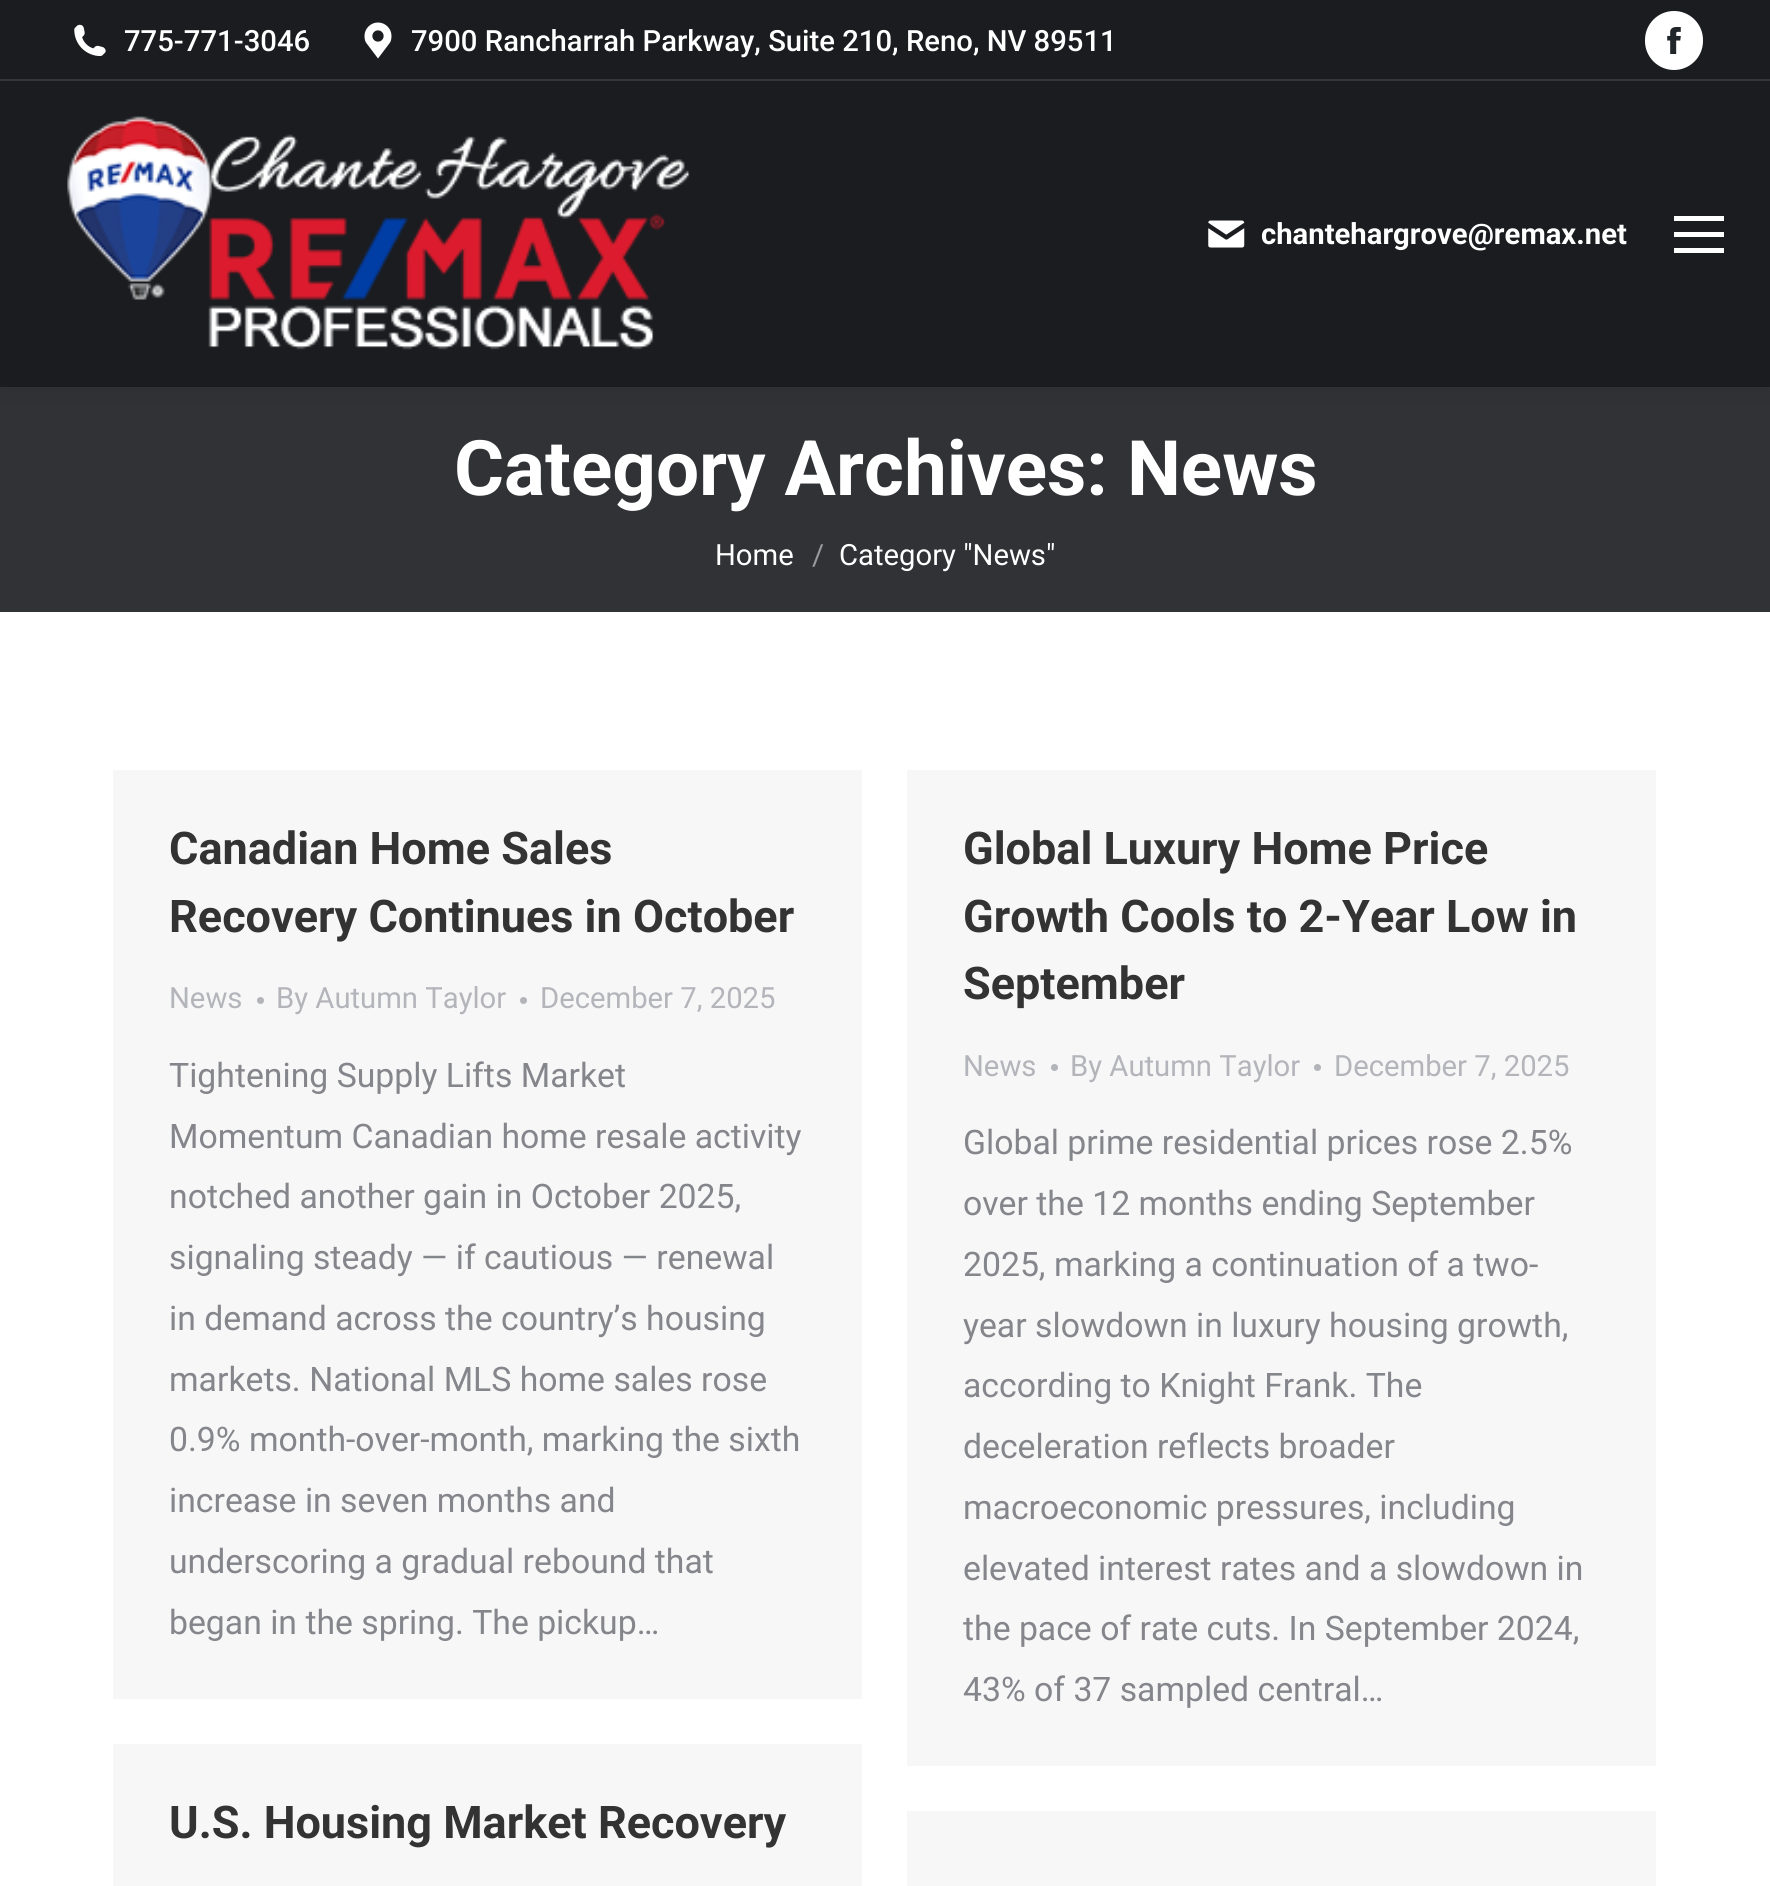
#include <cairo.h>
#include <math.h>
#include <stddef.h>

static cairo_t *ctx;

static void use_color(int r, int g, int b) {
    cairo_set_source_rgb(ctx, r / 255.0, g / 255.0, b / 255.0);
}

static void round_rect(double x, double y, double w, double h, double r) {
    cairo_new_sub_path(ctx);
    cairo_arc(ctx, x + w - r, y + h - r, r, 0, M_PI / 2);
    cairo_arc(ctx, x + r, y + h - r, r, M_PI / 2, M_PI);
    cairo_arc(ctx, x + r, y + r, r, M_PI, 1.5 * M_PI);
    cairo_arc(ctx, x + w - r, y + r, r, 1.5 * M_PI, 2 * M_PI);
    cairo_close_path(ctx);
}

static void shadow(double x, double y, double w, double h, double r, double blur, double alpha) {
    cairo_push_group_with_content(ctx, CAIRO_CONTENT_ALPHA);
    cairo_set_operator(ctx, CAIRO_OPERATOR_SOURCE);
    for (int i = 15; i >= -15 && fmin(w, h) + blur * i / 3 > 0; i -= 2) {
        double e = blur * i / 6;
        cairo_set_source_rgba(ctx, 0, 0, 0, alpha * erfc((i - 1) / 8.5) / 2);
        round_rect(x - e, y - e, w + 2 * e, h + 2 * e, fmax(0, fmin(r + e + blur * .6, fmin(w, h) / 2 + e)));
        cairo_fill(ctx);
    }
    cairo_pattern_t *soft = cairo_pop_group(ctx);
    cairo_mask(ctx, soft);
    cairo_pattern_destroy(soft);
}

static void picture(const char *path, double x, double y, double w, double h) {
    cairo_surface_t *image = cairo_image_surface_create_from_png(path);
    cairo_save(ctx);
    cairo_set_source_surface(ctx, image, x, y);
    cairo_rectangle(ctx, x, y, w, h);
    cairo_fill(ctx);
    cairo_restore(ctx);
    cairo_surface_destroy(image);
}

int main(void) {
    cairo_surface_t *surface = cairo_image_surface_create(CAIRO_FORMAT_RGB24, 1770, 1886);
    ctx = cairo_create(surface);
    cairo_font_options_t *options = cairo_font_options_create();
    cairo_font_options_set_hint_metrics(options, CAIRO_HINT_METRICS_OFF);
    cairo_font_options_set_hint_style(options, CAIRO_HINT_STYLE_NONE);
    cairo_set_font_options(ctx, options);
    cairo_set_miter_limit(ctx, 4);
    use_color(255, 255, 255);
    cairo_paint(ctx);
    use_color(48, 50, 54);
    cairo_rectangle(ctx, 0, 387, 1770, 225);
    cairo_fill(ctx);
    use_color(0, 0, 0);
    shadow(-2, -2, 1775, 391, 0, 17, 0.07);
    use_color(26, 28, 32);
    cairo_rectangle(ctx, 0, 0, 1770, 387);
    cairo_fill(ctx);
    picture("img1.png", 74, 24, 32, 32);
    cairo_select_font_face(ctx, "Roboto Medium", CAIRO_FONT_SLANT_NORMAL, CAIRO_FONT_WEIGHT_NORMAL);
    cairo_set_font_size(ctx, 29.25);
    use_color(255, 255, 255);
    cairo_move_to(ctx, 124, 51);
    cairo_show_text(ctx, "775-771-3046");
    picture("img2.png", 364, 22, 28, 37);
    cairo_move_to(ctx, 411, 51);
    cairo_show_text(ctx, "7900 Rancharrah Parkway, Suite 210, Reno, NV 89511");
    round_rect(1645, 11, 58, 59, 29);
    cairo_fill(ctx);
    picture("img3.png", 1667, 27, 14, 27);
    use_color(53, 55, 59);
    cairo_rectangle(ctx, 0, 79, 1770, 2);
    cairo_fill(ctx);
    picture("img4.png", 67, 116, 623, 234);
    picture("img5.png", 1208, 220, 37, 28);
    cairo_select_font_face(ctx, "Roboto", CAIRO_FONT_SLANT_NORMAL, CAIRO_FONT_WEIGHT_BOLD);
    use_color(255, 255, 255);
    cairo_move_to(ctx, 1261, 244);
    cairo_show_text(ctx, "chantehargrove@remax.net");
    cairo_rectangle(ctx, 1674, 216, 50, 5);
    cairo_fill(ctx);
    cairo_rectangle(ctx, 1674, 232, 50, 5);
    cairo_fill(ctx);
    cairo_rectangle(ctx, 1674, 248, 50, 5);
    cairo_fill(ctx);
    cairo_set_font_size(ctx, 76.5);
    cairo_move_to(ctx, 454, 495);
    cairo_show_text(ctx, "Category Archives: News");
    cairo_select_font_face(ctx, "Roboto", CAIRO_FONT_SLANT_NORMAL, CAIRO_FONT_WEIGHT_NORMAL);
    cairo_set_font_size(ctx, 29.25);
    cairo_move_to(ctx, 715, 565);
    cairo_show_text(ctx, "Home");
    use_color(152, 153, 155);
    cairo_move_to(ctx, 812, 565);
    cairo_show_text(ctx, "/");
    use_color(255, 255, 255);
    cairo_move_to(ctx, 839, 565);
    cairo_show_text(ctx, "Category \"News\"");
    use_color(247, 247, 247);
    cairo_rectangle(ctx, 113, 770, 749, 929);
    cairo_fill(ctx);
    cairo_select_font_face(ctx, "Roboto", CAIRO_FONT_SLANT_NORMAL, CAIRO_FONT_WEIGHT_BOLD);
    cairo_set_font_size(ctx, 45);
    use_color(51, 51, 51);
    cairo_move_to(ctx, 169, 864);
    cairo_show_text(ctx, "Canadian Home Sales");
    cairo_move_to(ctx, 169, 932);
    cairo_show_text(ctx, "Recovery Continues in October");
    cairo_select_font_face(ctx, "Roboto", CAIRO_FONT_SLANT_NORMAL, CAIRO_FONT_WEIGHT_NORMAL);
    cairo_set_font_size(ctx, 29.25);
    use_color(180, 181, 187);
    cairo_move_to(ctx, 169, 1008);
    cairo_show_text(ctx, "News");
    cairo_new_path(ctx);
    cairo_arc(ctx, 260.5, 1000.5, 3.5, 0, 2 * M_PI);
    cairo_fill(ctx);
    cairo_move_to(ctx, 276, 1008);
    cairo_show_text(ctx, "By Autumn Taylor");
    cairo_new_path(ctx);
    cairo_arc(ctx, 523.5, 1000.5, 3.5, 0, 2 * M_PI);
    cairo_fill(ctx);
    cairo_move_to(ctx, 540, 1008);
    cairo_show_text(ctx, "December 7, 2025");
    cairo_set_font_size(ctx, 33.75);
    use_color(133, 134, 140);
    cairo_move_to(ctx, 169, 1087);
    cairo_show_text(ctx, "Tightening Supply Lifts Market");
    cairo_move_to(ctx, 169, 1148);
    cairo_show_text(ctx, "Momentum Canadian home resale activity");
    cairo_move_to(ctx, 169, 1208);
    cairo_show_text(ctx, "notched another gain in October 2025,");
    cairo_move_to(ctx, 169, 1269);
    cairo_show_text(ctx, "signaling steady — if cautious — renewal");
    cairo_move_to(ctx, 169, 1330);
    cairo_show_text(ctx, "in demand across the country’s housing");
    cairo_move_to(ctx, 169, 1391);
    cairo_show_text(ctx, "markets. National MLS home sales rose");
    cairo_move_to(ctx, 169, 1451);
    cairo_show_text(ctx, "0.9% month-over-month, marking the sixth");
    cairo_move_to(ctx, 169, 1512);
    cairo_show_text(ctx, "increase in seven months and");
    cairo_move_to(ctx, 169, 1573);
    cairo_show_text(ctx, "underscoring a gradual rebound that");
    cairo_move_to(ctx, 169, 1634);
    cairo_show_text(ctx, "began in the spring. The pickup…");
    use_color(247, 247, 247);
    cairo_rectangle(ctx, 907, 770, 749, 996);
    cairo_fill(ctx);
    cairo_select_font_face(ctx, "Roboto", CAIRO_FONT_SLANT_NORMAL, CAIRO_FONT_WEIGHT_BOLD);
    cairo_set_font_size(ctx, 45);
    use_color(51, 51, 51);
    cairo_move_to(ctx, 963, 864);
    cairo_show_text(ctx, "Global Luxury Home Price");
    cairo_move_to(ctx, 963, 932);
    cairo_show_text(ctx, "Growth Cools to 2-Year Low in");
    cairo_move_to(ctx, 963, 999);
    cairo_show_text(ctx, "September");
    cairo_select_font_face(ctx, "Roboto", CAIRO_FONT_SLANT_NORMAL, CAIRO_FONT_WEIGHT_NORMAL);
    cairo_set_font_size(ctx, 29.25);
    use_color(180, 181, 187);
    cairo_move_to(ctx, 963, 1076);
    cairo_show_text(ctx, "News");
    cairo_new_path(ctx);
    cairo_arc(ctx, 1054.5, 1067.5, 3.5, 0, 2 * M_PI);
    cairo_fill(ctx);
    cairo_move_to(ctx, 1070, 1076);
    cairo_show_text(ctx, "By Autumn Taylor");
    cairo_new_path(ctx);
    cairo_arc(ctx, 1317.5, 1067.5, 3.5, 0, 2 * M_PI);
    cairo_fill(ctx);
    cairo_move_to(ctx, 1334, 1076);
    cairo_show_text(ctx, "December 7, 2025");
    cairo_set_font_size(ctx, 33.75);
    use_color(133, 134, 140);
    cairo_move_to(ctx, 963, 1154);
    cairo_show_text(ctx, "Global prime residential prices rose 2.5%");
    cairo_move_to(ctx, 963, 1215);
    cairo_show_text(ctx, "over the 12 months ending September");
    cairo_move_to(ctx, 963, 1276);
    cairo_show_text(ctx, "2025, marking a continuation of a two-");
    cairo_move_to(ctx, 963, 1337);
    cairo_show_text(ctx, "year slowdown in luxury housing growth,");
    cairo_move_to(ctx, 963, 1397);
    cairo_show_text(ctx, "according to Knight Frank. The");
    cairo_move_to(ctx, 963, 1458);
    cairo_show_text(ctx, "deceleration reflects broader");
    cairo_move_to(ctx, 963, 1519);
    cairo_show_text(ctx, "macroeconomic pressures, including");
    cairo_move_to(ctx, 963, 1580);
    cairo_show_text(ctx, "elevated interest rates and a slowdown in");
    cairo_move_to(ctx, 963, 1640);
    cairo_show_text(ctx, "the pace of rate cuts. In September 2024,");
    cairo_move_to(ctx, 963, 1701);
    cairo_show_text(ctx, "43% of 37 sampled central…");
    use_color(247, 247, 247);
    cairo_rectangle(ctx, 113, 1744, 749, 142);
    cairo_fill(ctx);
    cairo_select_font_face(ctx, "Roboto", CAIRO_FONT_SLANT_NORMAL, CAIRO_FONT_WEIGHT_BOLD);
    cairo_set_font_size(ctx, 45);
    use_color(51, 51, 51);
    cairo_move_to(ctx, 169, 1838);
    cairo_show_text(ctx, "U.S. Housing Market Recovery");
    use_color(247, 247, 247);
    cairo_rectangle(ctx, 907, 1811, 749, 75);
    cairo_fill(ctx);
    cairo_surface_write_to_png(surface, "result.png");
    cairo_font_options_destroy(options);
    cairo_destroy(ctx);
    cairo_surface_destroy(surface);
    return 0;
}
